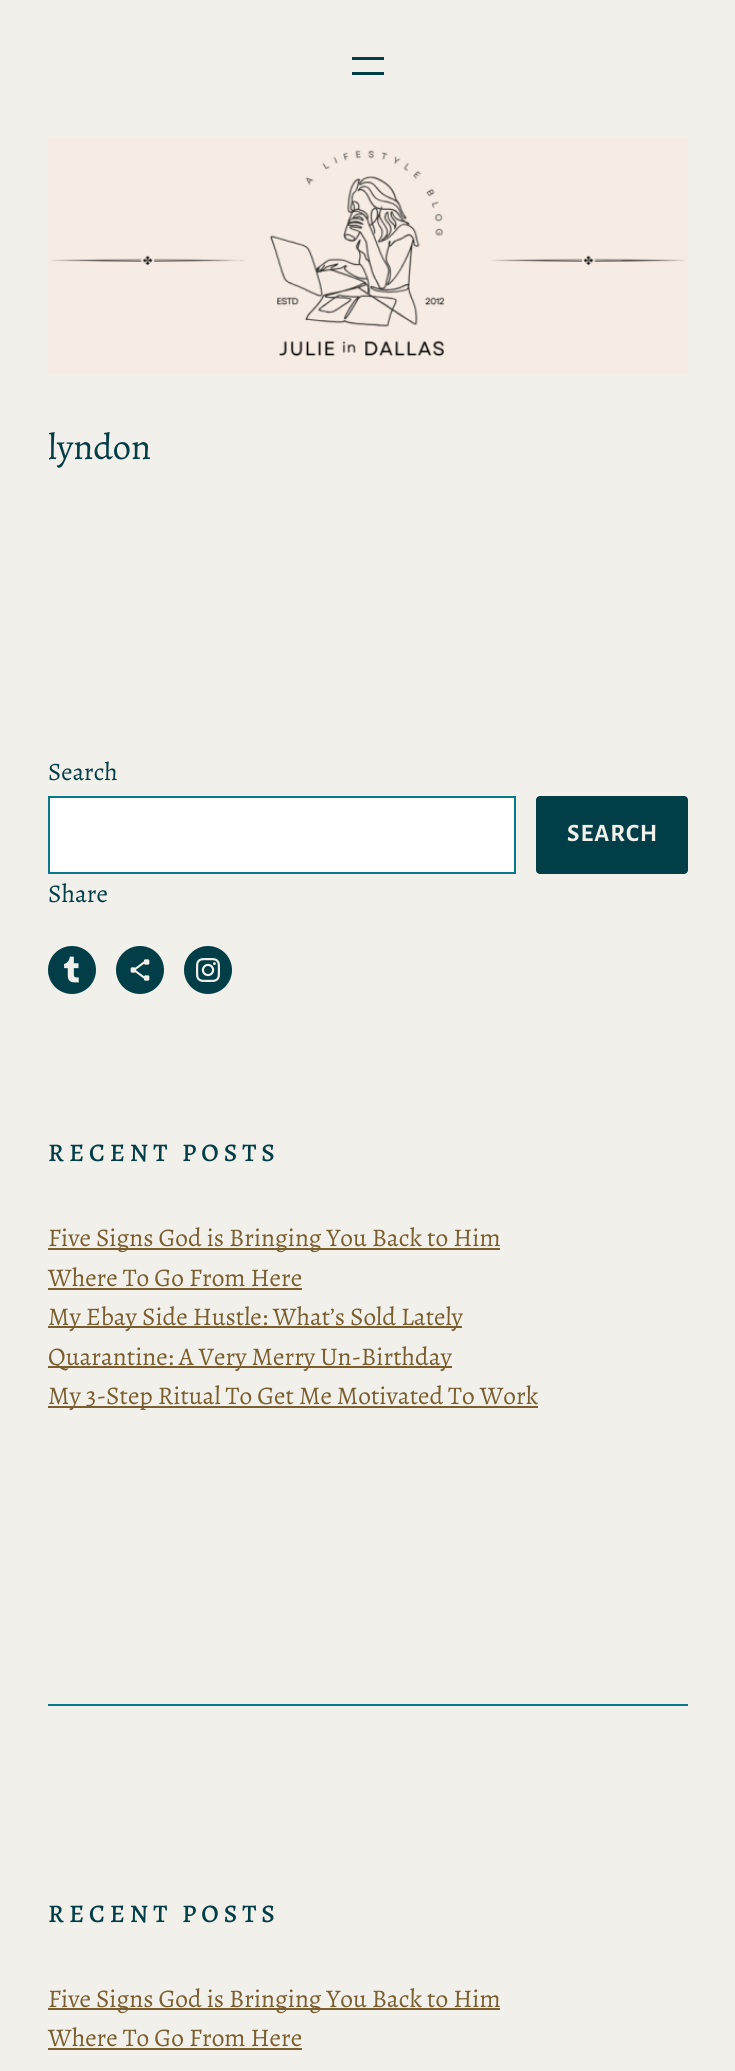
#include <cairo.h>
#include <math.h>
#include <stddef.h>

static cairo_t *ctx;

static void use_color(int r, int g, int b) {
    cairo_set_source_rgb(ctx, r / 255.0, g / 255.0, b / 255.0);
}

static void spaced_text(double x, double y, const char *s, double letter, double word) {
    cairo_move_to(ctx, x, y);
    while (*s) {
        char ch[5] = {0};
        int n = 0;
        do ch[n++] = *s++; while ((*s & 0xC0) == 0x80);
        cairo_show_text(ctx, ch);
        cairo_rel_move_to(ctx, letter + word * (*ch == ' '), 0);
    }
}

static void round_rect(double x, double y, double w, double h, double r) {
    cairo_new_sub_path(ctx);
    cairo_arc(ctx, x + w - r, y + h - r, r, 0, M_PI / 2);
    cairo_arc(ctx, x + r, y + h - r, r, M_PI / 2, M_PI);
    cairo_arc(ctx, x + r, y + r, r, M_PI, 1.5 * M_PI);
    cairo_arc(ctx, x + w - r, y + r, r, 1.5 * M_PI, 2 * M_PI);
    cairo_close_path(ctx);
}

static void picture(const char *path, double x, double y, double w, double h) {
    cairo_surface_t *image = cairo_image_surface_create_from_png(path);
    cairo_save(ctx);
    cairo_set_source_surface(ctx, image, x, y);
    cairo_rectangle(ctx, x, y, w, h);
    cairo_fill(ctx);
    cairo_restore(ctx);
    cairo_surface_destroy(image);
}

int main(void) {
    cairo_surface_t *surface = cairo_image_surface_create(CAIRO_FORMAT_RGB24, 735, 2071);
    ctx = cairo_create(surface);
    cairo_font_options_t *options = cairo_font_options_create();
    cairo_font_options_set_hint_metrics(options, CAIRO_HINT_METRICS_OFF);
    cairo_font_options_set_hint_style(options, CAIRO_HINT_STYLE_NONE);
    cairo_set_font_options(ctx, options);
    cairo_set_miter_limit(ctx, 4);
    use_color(242, 240, 234);
    cairo_paint(ctx);
    use_color(2, 62, 71);
    cairo_rectangle(ctx, 352, 57, 32, 3);
    cairo_fill(ctx);
    cairo_rectangle(ctx, 352, 72, 32, 3);
    cairo_fill(ctx);
    picture("img1.png", 48, 138, 640, 236);
    cairo_select_font_face(ctx, "Alegreya", CAIRO_FONT_SLANT_NORMAL, CAIRO_FONT_WEIGHT_NORMAL);
    cairo_set_font_size(ctx, 36.5);
    cairo_move_to(ctx, 48, 459);
    cairo_show_text(ctx, "lyndon");
    cairo_set_font_size(ctx, 25);
    cairo_move_to(ctx, 48, 780);
    cairo_show_text(ctx, "Search");
    use_color(255, 255, 255);
    cairo_rectangle(ctx, 49, 797, 466, 76);
    cairo_fill_preserve(ctx);
    use_color(9, 120, 137);
    cairo_stroke(ctx);
    use_color(2, 62, 71);
    round_rect(536, 796, 152, 78, 4);
    cairo_fill(ctx);
    cairo_select_font_face(ctx, "Alegreya Sans", CAIRO_FONT_SLANT_NORMAL, CAIRO_FONT_WEIGHT_BOLD);
    use_color(242, 240, 234);
    spaced_text(567, 841, "SEARCH", 1, 0);
    cairo_select_font_face(ctx, "Alegreya", CAIRO_FONT_SLANT_NORMAL, CAIRO_FONT_WEIGHT_NORMAL);
    cairo_set_font_size(ctx, 25.4);
    use_color(2, 62, 71);
    cairo_move_to(ctx, 48, 902);
    cairo_show_text(ctx, "Share");
    cairo_new_path(ctx);
    cairo_arc(ctx, 72, 970, 24, 0, 2 * M_PI);
    cairo_fill(ctx);
    picture("img2.png", 64, 956, 15, 27);
    cairo_arc(ctx, 140, 970, 24, 0, 2 * M_PI);
    cairo_fill(ctx);
    picture("img3.png", 130, 959, 20, 22);
    cairo_arc(ctx, 208, 970, 24, 0, 2 * M_PI);
    cairo_fill(ctx);
    picture("img4.png", 196, 958, 24, 24);
    cairo_select_font_face(ctx, "Alegreya Medium", CAIRO_FONT_SLANT_NORMAL, CAIRO_FONT_WEIGHT_NORMAL);
    spaced_text(48, 1161, "RECENT POSTS", 5, 0);
    use_color(122, 94, 47);
    cairo_rectangle(ctx, 48, 1248, 452, 2);
    cairo_fill(ctx);
    cairo_select_font_face(ctx, "Alegreya", CAIRO_FONT_SLANT_NORMAL, CAIRO_FONT_WEIGHT_NORMAL);
    cairo_move_to(ctx, 48, 1246);
    cairo_show_text(ctx, "Five Signs God is Bringing You Back to Him");
    cairo_move_to(ctx, 48, 1286);
    cairo_show_text(ctx, "Where To Go From Here");
    cairo_rectangle(ctx, 48, 1288, 254, 2);
    cairo_fill(ctx);
    cairo_rectangle(ctx, 48, 1326, 414, 2);
    cairo_fill(ctx);
    cairo_move_to(ctx, 48, 1325);
    cairo_show_text(ctx, "My Ebay Side Hustle: What’s Sold Lately");
    cairo_rectangle(ctx, 48, 1366, 404, 2);
    cairo_fill(ctx);
    cairo_move_to(ctx, 48, 1365);
    cairo_show_text(ctx, "Quarantine: A Very Merry Un-Birthday");
    cairo_rectangle(ctx, 48, 1406, 490, 2);
    cairo_fill(ctx);
    cairo_move_to(ctx, 48, 1404);
    cairo_show_text(ctx, "My 3-Step Ritual To Get Me Motivated To Work");
    use_color(9, 120, 137);
    cairo_rectangle(ctx, 48, 1704, 640, 2);
    cairo_fill(ctx);
    cairo_select_font_face(ctx, "Alegreya Medium", CAIRO_FONT_SLANT_NORMAL, CAIRO_FONT_WEIGHT_NORMAL);
    use_color(2, 62, 71);
    spaced_text(48, 1922, "RECENT POSTS", 5, 0);
    use_color(122, 94, 47);
    cairo_rectangle(ctx, 48, 2008, 452, 2);
    cairo_fill(ctx);
    cairo_select_font_face(ctx, "Alegreya", CAIRO_FONT_SLANT_NORMAL, CAIRO_FONT_WEIGHT_NORMAL);
    cairo_move_to(ctx, 48, 2007);
    cairo_show_text(ctx, "Five Signs God is Bringing You Back to Him");
    cairo_move_to(ctx, 48, 2046);
    cairo_show_text(ctx, "Where To Go From Here");
    cairo_rectangle(ctx, 48, 2048, 254, 2);
    cairo_fill(ctx);
    cairo_surface_write_to_png(surface, "result.png");
    cairo_font_options_destroy(options);
    cairo_destroy(ctx);
    cairo_surface_destroy(surface);
    return 0;
}
